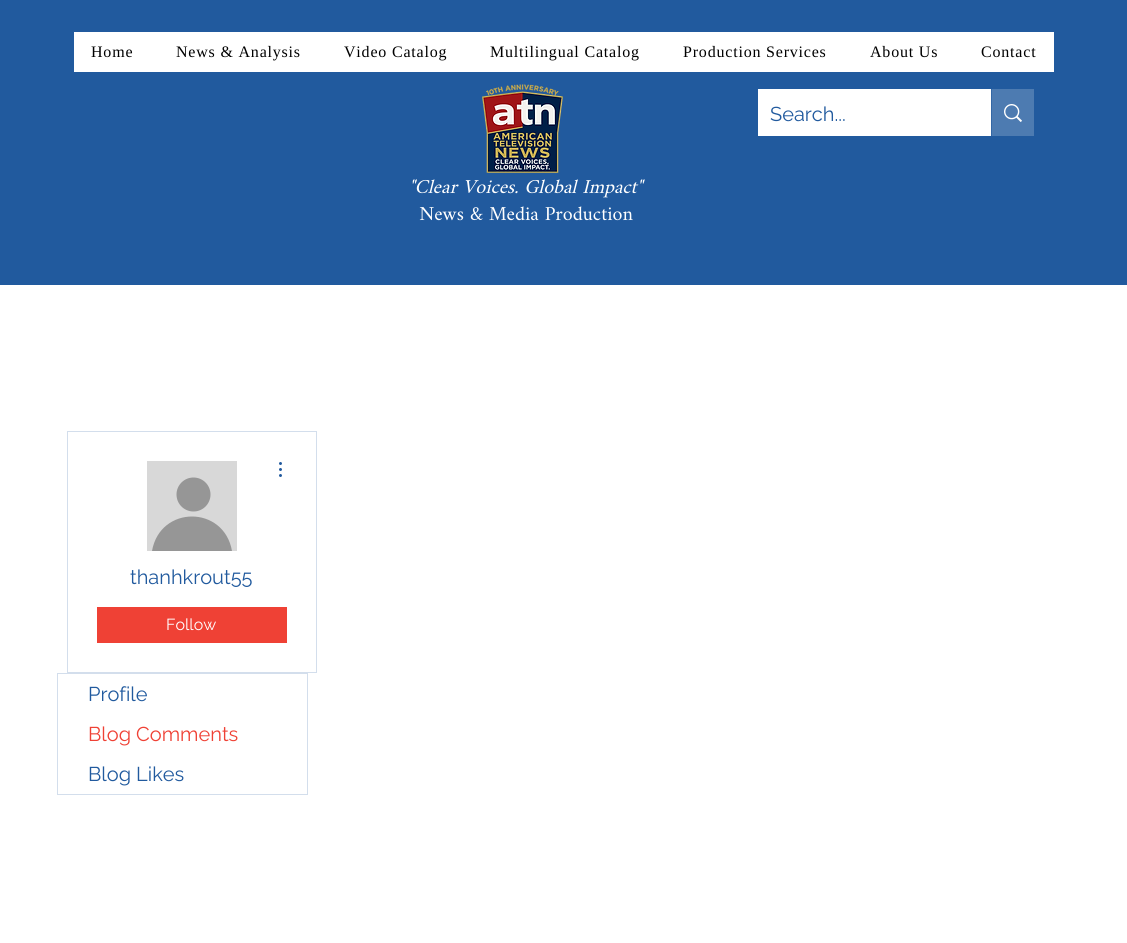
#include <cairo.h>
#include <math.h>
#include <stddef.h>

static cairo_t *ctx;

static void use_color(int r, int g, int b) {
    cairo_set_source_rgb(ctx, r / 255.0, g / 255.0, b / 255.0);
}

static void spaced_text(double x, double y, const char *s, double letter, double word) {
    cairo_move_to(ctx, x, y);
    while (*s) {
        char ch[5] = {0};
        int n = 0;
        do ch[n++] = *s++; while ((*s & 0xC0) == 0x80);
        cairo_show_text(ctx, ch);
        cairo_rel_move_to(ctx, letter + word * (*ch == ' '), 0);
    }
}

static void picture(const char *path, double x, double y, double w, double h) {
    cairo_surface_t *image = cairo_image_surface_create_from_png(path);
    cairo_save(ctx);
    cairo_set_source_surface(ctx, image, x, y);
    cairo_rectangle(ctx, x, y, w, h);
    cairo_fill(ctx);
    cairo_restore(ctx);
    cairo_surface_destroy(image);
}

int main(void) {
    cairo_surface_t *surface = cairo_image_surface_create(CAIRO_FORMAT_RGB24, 1127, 943);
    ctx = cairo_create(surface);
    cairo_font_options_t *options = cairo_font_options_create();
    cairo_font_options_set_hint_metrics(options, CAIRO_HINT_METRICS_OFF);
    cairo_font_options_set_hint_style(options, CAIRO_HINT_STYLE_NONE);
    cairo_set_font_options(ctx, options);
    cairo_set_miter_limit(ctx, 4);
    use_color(255, 255, 255);
    cairo_paint(ctx);
    use_color(33, 90, 158);
    cairo_rectangle(ctx, 0, 0, 1127, 285);
    cairo_fill(ctx);
    use_color(255, 255, 255);
    cairo_rectangle(ctx, 74, 32, 980, 40);
    cairo_fill(ctx);
    cairo_select_font_face(ctx, "Liberation Serif", CAIRO_FONT_SLANT_NORMAL, CAIRO_FONT_WEIGHT_NORMAL);
    cairo_set_font_size(ctx, 16);
    use_color(0, 0, 0);
    spaced_text(91, 57, "Home", 0.8, 0);
    spaced_text(176, 57, "News & Analysis", 0.8, 0);
    spaced_text(344, 57, "Video Catalog", 0.8, 0);
    spaced_text(490, 57, "Multilingual Catalog", 0.8, 0);
    spaced_text(683, 57, "Production Services", 0.8, 0);
    spaced_text(870, 57, "About Us", 0.8, 0);
    spaced_text(981, 57, "Contact", 0.8, 0);
    picture("img1.png", 482, 84, 81, 89);
    use_color(255, 255, 255);
    cairo_rectangle(ctx, 758, 89, 233, 47);
    cairo_fill(ctx);
    cairo_select_font_face(ctx, "Raleway", CAIRO_FONT_SLANT_NORMAL, CAIRO_FONT_WEIGHT_NORMAL);
    cairo_set_font_size(ctx, 20);
    use_color(33, 90, 158);
    cairo_move_to(ctx, 770, 121);
    cairo_show_text(ctx, "Search...");
    use_color(77, 123, 177);
    cairo_rectangle(ctx, 992, 89, 42, 47);
    cairo_fill(ctx);
    use_color(51, 103, 166);
    cairo_rectangle(ctx, 991, 89, 1, 47);
    cairo_fill(ctx);
    picture("img2.png", 1004, 104, 18, 18);
    cairo_select_font_face(ctx, "Amiri", CAIRO_FONT_SLANT_ITALIC, CAIRO_FONT_WEIGHT_NORMAL);
    use_color(255, 255, 255);
    cairo_move_to(ctx, 409, 193);
    cairo_show_text(ctx, "\"Clear Voices. Global Impact\"");
    cairo_select_font_face(ctx, "Amiri", CAIRO_FONT_SLANT_NORMAL, CAIRO_FONT_WEIGHT_NORMAL);
    cairo_move_to(ctx, 419, 220);
    cairo_show_text(ctx, "News & Media Production");
    cairo_rectangle(ctx, 67.5, 431.5, 249, 241);
    use_color(211, 222, 236);
    cairo_set_line_width(ctx, 1);
    cairo_stroke(ctx);
    use_color(216, 216, 216);
    cairo_rectangle(ctx, 147, 461, 90, 90);
    cairo_fill(ctx);
    use_color(150, 150, 150);
    cairo_arc(ctx, 193.5, 494.5, 17, 0, 2 * M_PI);
    cairo_fill(ctx);
    cairo_new_path(ctx);
    cairo_move_to(ctx, 232, 551);
    cairo_curve_to(ctx, 224, 505, 160, 505, 152, 551);
    cairo_close_path(ctx);
    cairo_fill(ctx);
    picture("img3.png", 279, 462, 3, 15);
    cairo_select_font_face(ctx, "Raleway", CAIRO_FONT_SLANT_NORMAL, CAIRO_FONT_WEIGHT_NORMAL);
    use_color(33, 90, 158);
    cairo_move_to(ctx, 130, 584);
    cairo_show_text(ctx, "thanhkrout55");
    use_color(239, 65, 53);
    cairo_rectangle(ctx, 97, 607, 190, 36);
    cairo_fill(ctx);
    cairo_set_font_size(ctx, 16);
    use_color(255, 255, 255);
    cairo_move_to(ctx, 166, 630);
    cairo_show_text(ctx, "Follow");
    cairo_rectangle(ctx, 57.5, 673.5, 250, 121);
    use_color(211, 222, 236);
    cairo_stroke(ctx);
    cairo_set_font_size(ctx, 20);
    use_color(33, 90, 158);
    cairo_move_to(ctx, 88, 701);
    cairo_show_text(ctx, "Profile");
    use_color(239, 65, 53);
    cairo_move_to(ctx, 88, 741);
    cairo_show_text(ctx, "Blog Comments");
    use_color(33, 90, 158);
    cairo_move_to(ctx, 88, 781);
    cairo_show_text(ctx, "Blog Likes");
    cairo_surface_write_to_png(surface, "result.png");
    cairo_font_options_destroy(options);
    cairo_destroy(ctx);
    cairo_surface_destroy(surface);
    return 0;
}
